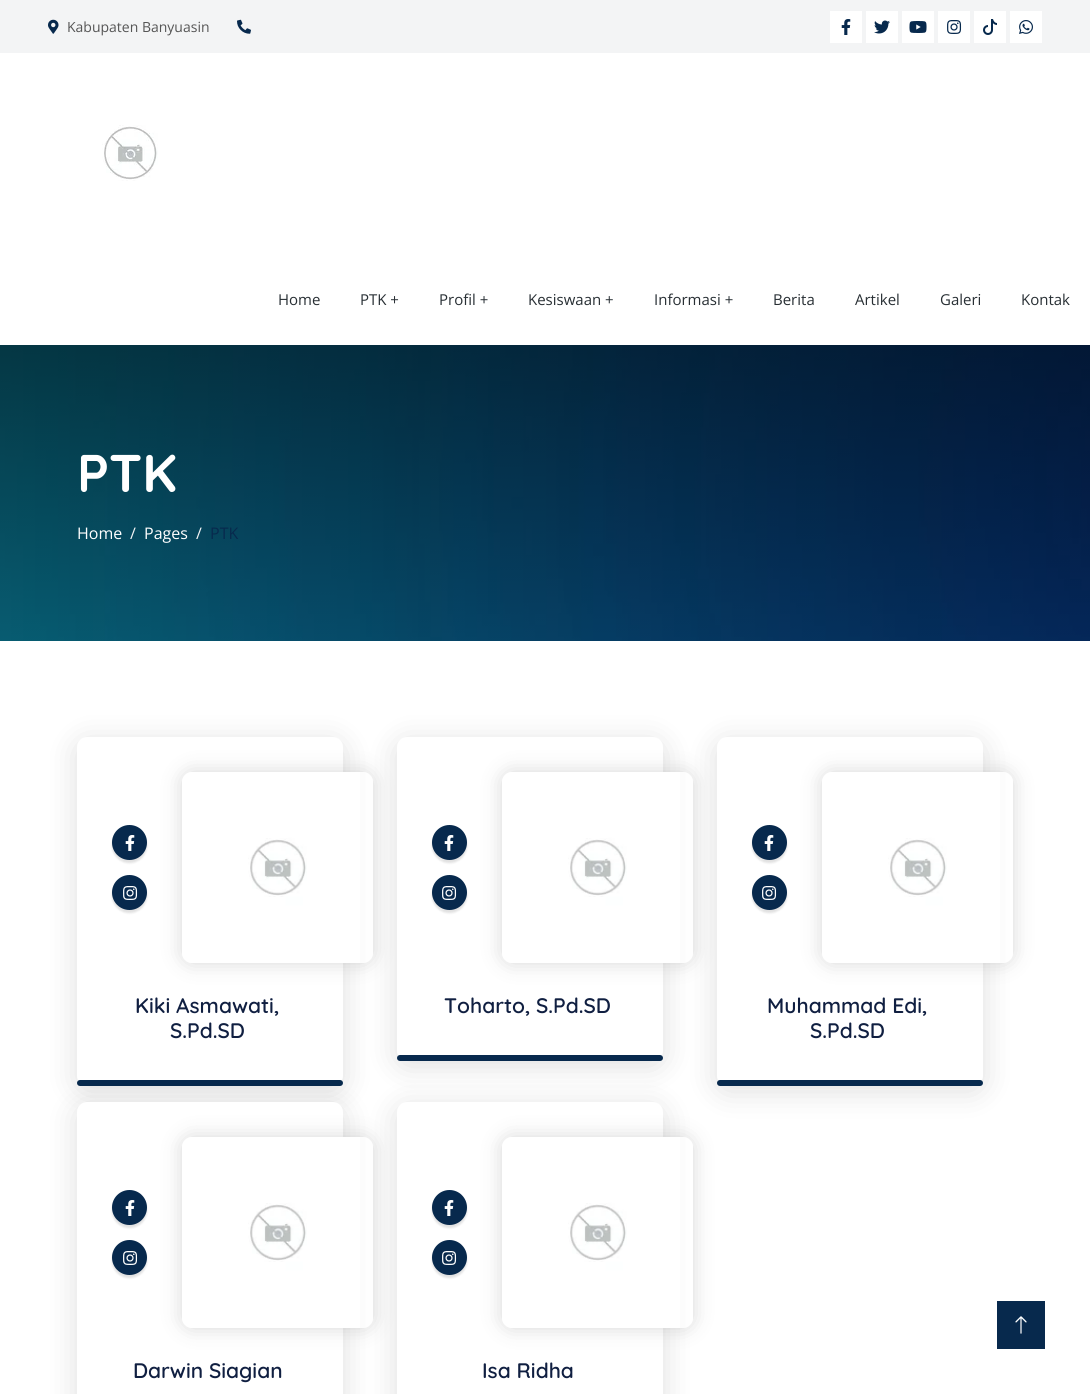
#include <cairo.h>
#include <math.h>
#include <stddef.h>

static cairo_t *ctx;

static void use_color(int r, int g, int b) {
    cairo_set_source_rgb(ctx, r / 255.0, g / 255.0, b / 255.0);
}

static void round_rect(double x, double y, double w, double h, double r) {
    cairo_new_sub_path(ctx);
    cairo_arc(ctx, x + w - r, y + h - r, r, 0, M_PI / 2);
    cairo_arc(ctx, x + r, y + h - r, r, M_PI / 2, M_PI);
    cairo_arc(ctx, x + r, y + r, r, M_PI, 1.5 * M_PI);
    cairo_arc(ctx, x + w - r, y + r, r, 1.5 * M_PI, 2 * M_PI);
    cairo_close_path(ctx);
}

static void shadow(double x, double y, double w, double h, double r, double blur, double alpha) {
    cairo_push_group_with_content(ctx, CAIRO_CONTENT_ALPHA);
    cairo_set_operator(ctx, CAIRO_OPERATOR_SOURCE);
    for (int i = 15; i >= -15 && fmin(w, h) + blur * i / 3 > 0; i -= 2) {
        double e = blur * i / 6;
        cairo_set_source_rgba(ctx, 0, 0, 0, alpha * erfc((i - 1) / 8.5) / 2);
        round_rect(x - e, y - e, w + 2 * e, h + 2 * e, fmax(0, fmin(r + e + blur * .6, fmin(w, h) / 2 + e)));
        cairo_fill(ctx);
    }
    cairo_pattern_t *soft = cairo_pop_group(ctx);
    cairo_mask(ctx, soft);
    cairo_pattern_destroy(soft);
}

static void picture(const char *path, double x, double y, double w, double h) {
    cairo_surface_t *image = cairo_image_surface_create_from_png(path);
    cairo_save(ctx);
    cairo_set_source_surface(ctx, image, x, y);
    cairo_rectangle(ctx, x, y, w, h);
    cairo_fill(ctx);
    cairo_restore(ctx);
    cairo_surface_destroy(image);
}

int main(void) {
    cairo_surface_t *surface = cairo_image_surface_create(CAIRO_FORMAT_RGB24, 1090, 1394);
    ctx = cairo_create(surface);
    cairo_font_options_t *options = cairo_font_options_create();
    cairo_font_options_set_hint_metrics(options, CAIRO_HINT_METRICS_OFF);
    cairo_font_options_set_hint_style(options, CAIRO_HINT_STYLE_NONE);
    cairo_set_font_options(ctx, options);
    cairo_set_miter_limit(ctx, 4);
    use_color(255, 255, 255);
    cairo_paint(ctx);
    use_color(243, 244, 245);
    cairo_rectangle(ctx, 0, 0, 1090, 53);
    cairo_fill(ctx);
    picture("img1.png", 48, 19, 11, 15);
    cairo_select_font_face(ctx, "Open Sans", CAIRO_FONT_SLANT_NORMAL, CAIRO_FONT_WEIGHT_NORMAL);
    cairo_set_font_size(ctx, 14);
    use_color(85, 85, 85);
    cairo_move_to(ctx, 67, 32);
    cairo_show_text(ctx, "Kabupaten Banyuasin");
    picture("img2.png", 237, 19, 14, 15);
    use_color(255, 255, 255);
    cairo_rectangle(ctx, 830, 11, 32, 32);
    cairo_fill(ctx);
    picture("img3.png", 841, 19, 10, 16);
    cairo_rectangle(ctx, 866, 11, 32, 32);
    cairo_fill(ctx);
    picture("img4.png", 874, 20, 16, 14);
    cairo_rectangle(ctx, 902, 11, 32, 32);
    cairo_fill(ctx);
    picture("img5.png", 909, 21, 18, 12);
    cairo_rectangle(ctx, 938, 11, 32, 32);
    cairo_fill(ctx);
    picture("img6.png", 947, 20, 15, 14);
    cairo_rectangle(ctx, 974, 11, 32, 32);
    cairo_fill(ctx);
    picture("img7.png", 983, 19, 14, 16);
    cairo_rectangle(ctx, 1010, 11, 32, 32);
    cairo_fill(ctx);
    picture("img8.png", 1019, 20, 14, 14);
    picture("img9.png", 102, 125, 56, 56);
    cairo_set_font_size(ctx, 15);
    use_color(40, 47, 52);
    cairo_move_to(ctx, 278, 305);
    cairo_show_text(ctx, "Home");
    cairo_move_to(ctx, 360, 305);
    cairo_show_text(ctx, "PTK +");
    cairo_move_to(ctx, 439, 305);
    cairo_show_text(ctx, "Profil +");
    cairo_move_to(ctx, 528, 305);
    cairo_show_text(ctx, "Kesiswaan +");
    cairo_move_to(ctx, 654, 305);
    cairo_show_text(ctx, "Informasi +");
    cairo_move_to(ctx, 773, 305);
    cairo_show_text(ctx, "Berita");
    cairo_move_to(ctx, 855, 305);
    cairo_show_text(ctx, "Artikel");
    cairo_move_to(ctx, 940, 305);
    cairo_show_text(ctx, "Galeri");
    cairo_move_to(ctx, 1021, 305);
    cairo_show_text(ctx, "Kontak");
    picture("img10.png", 0, 345, 1090, 296);
    cairo_select_font_face(ctx, "Quicksand", CAIRO_FONT_SLANT_NORMAL, CAIRO_FONT_WEIGHT_BOLD);
    cairo_set_font_size(ctx, 53);
    use_color(255, 255, 255);
    cairo_move_to(ctx, 77, 492);
    cairo_show_text(ctx, "PTK");
    cairo_select_font_face(ctx, "Open Sans", CAIRO_FONT_SLANT_NORMAL, CAIRO_FONT_WEIGHT_NORMAL);
    cairo_set_font_size(ctx, 16);
    cairo_move_to(ctx, 77, 539);
    cairo_show_text(ctx, "Home");
    use_color(243, 244, 245);
    cairo_move_to(ctx, 130, 539);
    cairo_show_text(ctx, "/");
    use_color(255, 255, 255);
    cairo_move_to(ctx, 144, 539);
    cairo_show_text(ctx, "Pages");
    use_color(243, 244, 245);
    cairo_move_to(ctx, 196, 539);
    cairo_show_text(ctx, "/");
    use_color(7, 41, 77);
    cairo_move_to(ctx, 210, 539);
    cairo_show_text(ctx, "PTK");
    use_color(39, 39, 39);
    shadow(77, 742, 266, 349, 10, 15, 0.15);
    use_color(255, 255, 255);
    round_rect(77, 737, 266, 349, 10);
    cairo_fill(ctx);
    use_color(0, 0, 0);
    shadow(112, 828, 35, 35, 17.5, 1, 0.12);
    use_color(7, 41, 77);
    cairo_arc(ctx, 129.5, 842.5, 17.5, 0, 2 * M_PI);
    cairo_fill(ctx);
    picture("img11.png", 125, 835, 10, 16);
    use_color(0, 0, 0);
    shadow(112, 878, 35, 35, 17.5, 1, 0.12);
    use_color(7, 41, 77);
    cairo_arc(ctx, 129.5, 892.5, 17.5, 0, 2 * M_PI);
    cairo_fill(ctx);
    picture("img12.png", 123, 886, 15, 14);
    cairo_save(ctx);
    cairo_set_fill_rule(ctx, CAIRO_FILL_RULE_EVEN_ODD);
    cairo_new_path(ctx);
    cairo_move_to(ctx, 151, 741);
    cairo_line_to(ctx, 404, 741);
    cairo_line_to(ctx, 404, 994);
    cairo_line_to(ctx, 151, 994);
    cairo_close_path(ctx);
    cairo_move_to(ctx, 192, 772);
    cairo_line_to(ctx, 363, 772);
    cairo_curve_to(ctx, 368.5, 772, 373, 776.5, 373, 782);
    cairo_line_to(ctx, 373, 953);
    cairo_curve_to(ctx, 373, 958.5, 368.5, 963, 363, 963);
    cairo_line_to(ctx, 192, 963);
    cairo_curve_to(ctx, 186.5, 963, 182, 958.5, 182, 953);
    cairo_line_to(ctx, 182, 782);
    cairo_curve_to(ctx, 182, 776.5, 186.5, 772, 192, 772);
    cairo_close_path(ctx);
    cairo_clip(ctx);
    use_color(51, 51, 51);
    shadow(182, 772, 191, 191, 10, 10, 0.2);
    cairo_restore(ctx);
    picture("img13.png", 248, 772, 112, 191);
    cairo_select_font_face(ctx, "Quicksand SemiBold", CAIRO_FONT_SLANT_NORMAL, CAIRO_FONT_WEIGHT_NORMAL);
    cairo_set_font_size(ctx, 21);
    use_color(16, 31, 65);
    cairo_move_to(ctx, 135, 1013);
    cairo_show_text(ctx, "Kiki Asmawati,");
    cairo_move_to(ctx, 170, 1038);
    cairo_show_text(ctx, "S.Pd.SD");
    use_color(7, 41, 77);
    round_rect(77, 1080, 266, 6, 3);
    cairo_fill(ctx);
    use_color(39, 39, 39);
    shadow(397, 742, 266, 324, 10, 15, 0.15);
    use_color(255, 255, 255);
    round_rect(397, 737, 266, 324, 10);
    cairo_fill(ctx);
    use_color(0, 0, 0);
    shadow(432, 828, 35, 35, 17.5, 1, 0.12);
    use_color(7, 41, 77);
    cairo_arc(ctx, 449.5, 842.5, 17.5, 0, 2 * M_PI);
    cairo_fill(ctx);
    picture("img11.png", 444, 835, 10, 16);
    use_color(0, 0, 0);
    shadow(432, 878, 35, 35, 17.5, 1, 0.12);
    use_color(7, 41, 77);
    cairo_arc(ctx, 449.5, 892.5, 17.5, 0, 2 * M_PI);
    cairo_fill(ctx);
    picture("img12.png", 442, 886, 15, 14);
    cairo_save(ctx);
    cairo_set_fill_rule(ctx, CAIRO_FILL_RULE_EVEN_ODD);
    cairo_new_path(ctx);
    cairo_move_to(ctx, 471, 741);
    cairo_line_to(ctx, 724, 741);
    cairo_line_to(ctx, 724, 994);
    cairo_line_to(ctx, 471, 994);
    cairo_close_path(ctx);
    cairo_move_to(ctx, 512, 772);
    cairo_line_to(ctx, 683, 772);
    cairo_curve_to(ctx, 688.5, 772, 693, 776.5, 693, 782);
    cairo_line_to(ctx, 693, 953);
    cairo_curve_to(ctx, 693, 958.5, 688.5, 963, 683, 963);
    cairo_line_to(ctx, 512, 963);
    cairo_curve_to(ctx, 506.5, 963, 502, 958.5, 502, 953);
    cairo_line_to(ctx, 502, 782);
    cairo_curve_to(ctx, 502, 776.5, 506.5, 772, 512, 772);
    cairo_close_path(ctx);
    cairo_clip(ctx);
    use_color(51, 51, 51);
    shadow(502, 772, 191, 191, 10, 10, 0.2);
    cairo_restore(ctx);
    picture("img13.png", 568, 772, 112, 191);
    use_color(16, 31, 65);
    cairo_move_to(ctx, 444, 1013);
    cairo_show_text(ctx, "Toharto, S.Pd.SD");
    use_color(7, 41, 77);
    round_rect(397, 1055, 266, 6, 3);
    cairo_fill(ctx);
    use_color(39, 39, 39);
    shadow(717, 742, 266, 349, 10, 15, 0.15);
    use_color(255, 255, 255);
    round_rect(717, 737, 266, 349, 10);
    cairo_fill(ctx);
    use_color(0, 0, 0);
    shadow(752, 828, 35, 35, 17.5, 1, 0.12);
    use_color(7, 41, 77);
    cairo_arc(ctx, 769.5, 842.5, 17.5, 0, 2 * M_PI);
    cairo_fill(ctx);
    picture("img11.png", 764, 835, 10, 16);
    use_color(0, 0, 0);
    shadow(752, 878, 35, 35, 17.5, 1, 0.12);
    use_color(7, 41, 77);
    cairo_arc(ctx, 769.5, 892.5, 17.5, 0, 2 * M_PI);
    cairo_fill(ctx);
    picture("img12.png", 762, 886, 15, 14);
    cairo_save(ctx);
    cairo_set_fill_rule(ctx, CAIRO_FILL_RULE_EVEN_ODD);
    cairo_new_path(ctx);
    cairo_move_to(ctx, 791, 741);
    cairo_line_to(ctx, 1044, 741);
    cairo_line_to(ctx, 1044, 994);
    cairo_line_to(ctx, 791, 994);
    cairo_close_path(ctx);
    cairo_move_to(ctx, 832, 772);
    cairo_line_to(ctx, 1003, 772);
    cairo_curve_to(ctx, 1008.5, 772, 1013, 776.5, 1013, 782);
    cairo_line_to(ctx, 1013, 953);
    cairo_curve_to(ctx, 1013, 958.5, 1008.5, 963, 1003, 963);
    cairo_line_to(ctx, 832, 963);
    cairo_curve_to(ctx, 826.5, 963, 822, 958.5, 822, 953);
    cairo_line_to(ctx, 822, 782);
    cairo_curve_to(ctx, 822, 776.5, 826.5, 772, 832, 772);
    cairo_close_path(ctx);
    cairo_clip(ctx);
    use_color(51, 51, 51);
    shadow(822, 772, 191, 191, 10, 10, 0.2);
    cairo_restore(ctx);
    picture("img13.png", 888, 772, 112, 191);
    use_color(16, 31, 65);
    cairo_move_to(ctx, 767, 1013);
    cairo_show_text(ctx, "Muhammad Edi,");
    cairo_move_to(ctx, 810, 1038);
    cairo_show_text(ctx, "S.Pd.SD");
    use_color(7, 41, 77);
    round_rect(717, 1080, 266, 6, 3);
    cairo_fill(ctx);
    use_color(39, 39, 39);
    shadow(77, 1107, 266, 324, 10, 15, 0.15);
    use_color(255, 255, 255);
    round_rect(77, 1102, 266, 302, 10);
    cairo_fill(ctx);
    use_color(0, 0, 0);
    shadow(112, 1193, 35, 35, 17.5, 1, 0.12);
    use_color(7, 41, 77);
    cairo_arc(ctx, 129.5, 1207.5, 17.5, 0, 2 * M_PI);
    cairo_fill(ctx);
    picture("img11.png", 125, 1200, 10, 16);
    use_color(0, 0, 0);
    shadow(112, 1243, 35, 35, 17.5, 1, 0.12);
    use_color(7, 41, 77);
    cairo_arc(ctx, 129.5, 1257.5, 17.5, 0, 2 * M_PI);
    cairo_fill(ctx);
    picture("img12.png", 123, 1251, 15, 14);
    cairo_save(ctx);
    cairo_set_fill_rule(ctx, CAIRO_FILL_RULE_EVEN_ODD);
    cairo_new_path(ctx);
    cairo_move_to(ctx, 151, 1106);
    cairo_line_to(ctx, 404, 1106);
    cairo_line_to(ctx, 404, 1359);
    cairo_line_to(ctx, 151, 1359);
    cairo_close_path(ctx);
    cairo_move_to(ctx, 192, 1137);
    cairo_line_to(ctx, 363, 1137);
    cairo_curve_to(ctx, 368.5, 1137, 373, 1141.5, 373, 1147);
    cairo_line_to(ctx, 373, 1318);
    cairo_curve_to(ctx, 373, 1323.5, 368.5, 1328, 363, 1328);
    cairo_line_to(ctx, 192, 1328);
    cairo_curve_to(ctx, 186.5, 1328, 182, 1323.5, 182, 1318);
    cairo_line_to(ctx, 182, 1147);
    cairo_curve_to(ctx, 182, 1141.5, 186.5, 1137, 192, 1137);
    cairo_close_path(ctx);
    cairo_clip(ctx);
    use_color(51, 51, 51);
    shadow(182, 1137, 191, 191, 10, 10, 0.2);
    cairo_restore(ctx);
    picture("img13.png", 248, 1137, 112, 191);
    use_color(16, 31, 65);
    cairo_move_to(ctx, 133, 1378);
    cairo_show_text(ctx, "Darwin Siagian");
    use_color(39, 39, 39);
    shadow(397, 1107, 266, 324, 10, 15, 0.15);
    use_color(255, 255, 255);
    round_rect(397, 1102, 266, 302, 10);
    cairo_fill(ctx);
    use_color(0, 0, 0);
    shadow(432, 1193, 35, 35, 17.5, 1, 0.12);
    use_color(7, 41, 77);
    cairo_arc(ctx, 449.5, 1207.5, 17.5, 0, 2 * M_PI);
    cairo_fill(ctx);
    picture("img11.png", 444, 1200, 10, 16);
    use_color(0, 0, 0);
    shadow(432, 1243, 35, 35, 17.5, 1, 0.12);
    use_color(7, 41, 77);
    cairo_arc(ctx, 449.5, 1257.5, 17.5, 0, 2 * M_PI);
    cairo_fill(ctx);
    picture("img12.png", 442, 1251, 15, 14);
    cairo_save(ctx);
    cairo_set_fill_rule(ctx, CAIRO_FILL_RULE_EVEN_ODD);
    cairo_new_path(ctx);
    cairo_move_to(ctx, 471, 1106);
    cairo_line_to(ctx, 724, 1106);
    cairo_line_to(ctx, 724, 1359);
    cairo_line_to(ctx, 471, 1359);
    cairo_close_path(ctx);
    cairo_move_to(ctx, 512, 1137);
    cairo_line_to(ctx, 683, 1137);
    cairo_curve_to(ctx, 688.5, 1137, 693, 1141.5, 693, 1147);
    cairo_line_to(ctx, 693, 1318);
    cairo_curve_to(ctx, 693, 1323.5, 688.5, 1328, 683, 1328);
    cairo_line_to(ctx, 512, 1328);
    cairo_curve_to(ctx, 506.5, 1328, 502, 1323.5, 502, 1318);
    cairo_line_to(ctx, 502, 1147);
    cairo_curve_to(ctx, 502, 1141.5, 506.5, 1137, 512, 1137);
    cairo_close_path(ctx);
    cairo_clip(ctx);
    use_color(51, 51, 51);
    shadow(502, 1137, 191, 191, 10, 10, 0.2);
    cairo_restore(ctx);
    picture("img13.png", 568, 1137, 112, 191);
    use_color(16, 31, 65);
    cairo_move_to(ctx, 482, 1378);
    cairo_show_text(ctx, "Isa Ridha");
    use_color(7, 41, 77);
    cairo_rectangle(ctx, 997, 1301, 48, 48);
    cairo_fill(ctx);
    picture("img14.png", 1015, 1316, 12, 18);
    cairo_surface_write_to_png(surface, "result.png");
    cairo_font_options_destroy(options);
    cairo_destroy(ctx);
    cairo_surface_destroy(surface);
    return 0;
}
